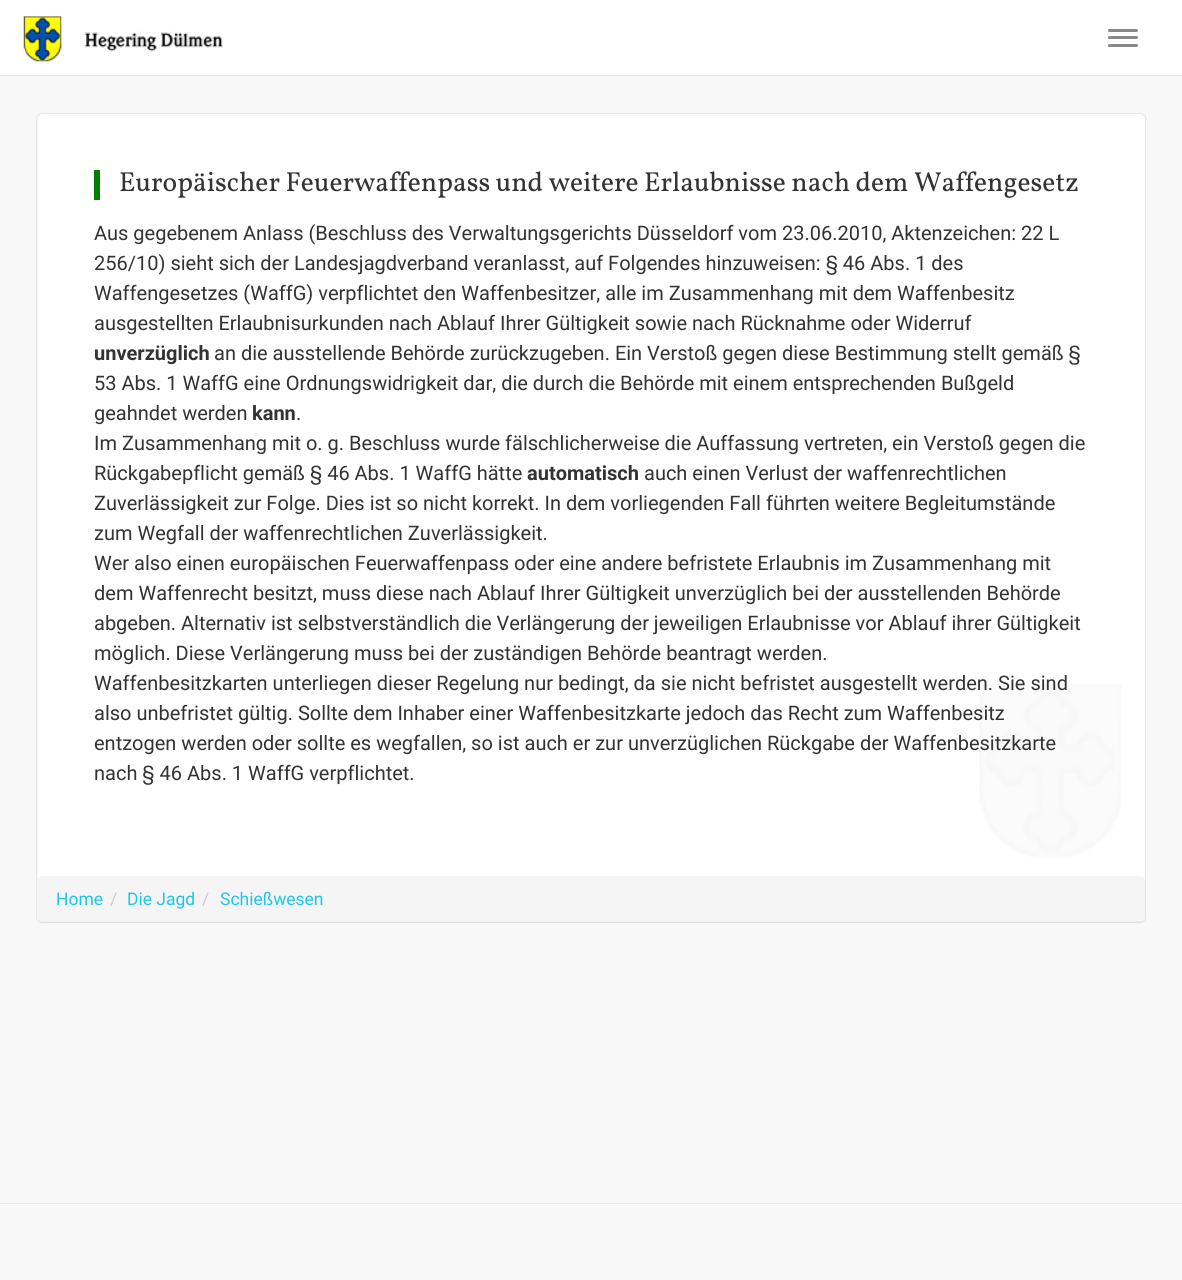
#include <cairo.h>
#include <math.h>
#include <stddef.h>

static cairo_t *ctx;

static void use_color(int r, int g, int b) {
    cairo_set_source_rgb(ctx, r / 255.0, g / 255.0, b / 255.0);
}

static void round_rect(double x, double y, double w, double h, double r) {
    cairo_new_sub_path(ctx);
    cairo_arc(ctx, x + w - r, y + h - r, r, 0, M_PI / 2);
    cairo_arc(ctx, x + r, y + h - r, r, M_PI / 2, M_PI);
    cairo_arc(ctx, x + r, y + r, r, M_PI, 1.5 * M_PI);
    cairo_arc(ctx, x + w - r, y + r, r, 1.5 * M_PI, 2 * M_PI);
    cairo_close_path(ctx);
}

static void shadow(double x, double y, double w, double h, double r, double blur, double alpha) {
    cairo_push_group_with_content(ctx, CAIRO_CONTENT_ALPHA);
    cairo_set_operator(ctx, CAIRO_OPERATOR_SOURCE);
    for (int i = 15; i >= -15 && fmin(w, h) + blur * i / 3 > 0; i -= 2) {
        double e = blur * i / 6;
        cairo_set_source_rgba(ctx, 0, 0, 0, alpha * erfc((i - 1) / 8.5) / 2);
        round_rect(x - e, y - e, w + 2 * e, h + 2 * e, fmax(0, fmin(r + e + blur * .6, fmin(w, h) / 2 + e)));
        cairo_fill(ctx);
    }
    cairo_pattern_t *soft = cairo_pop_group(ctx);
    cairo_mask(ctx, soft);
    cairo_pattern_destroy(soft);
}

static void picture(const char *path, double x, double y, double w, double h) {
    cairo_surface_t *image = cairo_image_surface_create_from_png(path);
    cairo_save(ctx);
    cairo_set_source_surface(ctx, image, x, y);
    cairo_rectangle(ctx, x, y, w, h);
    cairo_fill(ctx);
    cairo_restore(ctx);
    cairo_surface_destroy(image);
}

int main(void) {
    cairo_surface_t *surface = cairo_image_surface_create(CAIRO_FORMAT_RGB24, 1182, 1280);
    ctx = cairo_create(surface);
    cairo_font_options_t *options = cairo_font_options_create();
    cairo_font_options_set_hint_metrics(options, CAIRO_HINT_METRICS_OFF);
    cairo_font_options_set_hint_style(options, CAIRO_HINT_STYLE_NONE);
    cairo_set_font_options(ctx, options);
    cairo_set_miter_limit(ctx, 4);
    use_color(248, 248, 249);
    cairo_paint(ctx);
    use_color(255, 255, 255);
    cairo_rectangle(ctx, 0, 0, 1182, 75);
    cairo_fill(ctx);
    use_color(230, 230, 230);
    cairo_rectangle(ctx, 0, 75, 1182, 1);
    cairo_fill(ctx);
    picture("img1.png", 23, 16, 200, 46);
    use_color(136, 136, 136);
    round_rect(1108, 29, 30, 3, 1.5);
    cairo_fill(ctx);
    round_rect(1108, 36, 30, 3, 1.5);
    cairo_fill(ctx);
    round_rect(1108, 44, 30, 3, 1.5);
    cairo_fill(ctx);
    round_rect(36.5, 113.5, 1109, 809, 5.5);
    use_color(230, 230, 231);
    cairo_set_line_width(ctx, 1);
    cairo_stroke(ctx);
    use_color(0, 0, 0);
    shadow(38, 115, 1107, 808, 5, 1, 0.05);
    use_color(255, 255, 255);
    round_rect(38, 114, 1107, 807, 5);
    cairo_fill(ctx);
    picture("img2.png", 979, 684, 143, 173);
    use_color(0, 128, 0);
    cairo_rectangle(ctx, 94, 170, 6, 30);
    cairo_fill(ctx);
    cairo_select_font_face(ctx, "Vollkorn", CAIRO_FONT_SLANT_NORMAL, CAIRO_FONT_WEIGHT_NORMAL);
    cairo_set_font_size(ctx, 27.5);
    use_color(51, 51, 51);
    cairo_move_to(ctx, 119, 191);
    cairo_show_text(ctx, "Europäischer Feuerwaffenpass und weitere Erlaubnisse nach dem Waffengesetz");
    cairo_select_font_face(ctx, "Roboto", CAIRO_FONT_SLANT_NORMAL, CAIRO_FONT_WEIGHT_NORMAL);
    cairo_set_font_size(ctx, 20);
    cairo_move_to(ctx, 94, 240);
    cairo_show_text(ctx, "Aus gegebenem Anlass (Beschluss des Verwaltungsgerichts Düsseldorf vom 23.06.2010, Aktenzeichen: 22 L");
    cairo_move_to(ctx, 94, 270);
    cairo_show_text(ctx, "256/10) sieht sich der Landesjagdverband veranlasst, auf Folgendes hinzuweisen: § 46 Abs. 1 des");
    cairo_move_to(ctx, 94, 300);
    cairo_show_text(ctx, "Waffengesetzes (WaffG) verpflichtet den Waffenbesitzer, alle im Zusammenhang mit dem Waffenbesitz");
    cairo_move_to(ctx, 94, 330);
    cairo_show_text(ctx, "ausgestellten Erlaubnisurkunden nach Ablauf Ihrer Gültigkeit sowie nach Rücknahme oder Widerruf");
    cairo_select_font_face(ctx, "Roboto", CAIRO_FONT_SLANT_NORMAL, CAIRO_FONT_WEIGHT_BOLD);
    cairo_move_to(ctx, 94, 360);
    cairo_show_text(ctx, "unverzüglich");
    cairo_select_font_face(ctx, "Roboto", CAIRO_FONT_SLANT_NORMAL, CAIRO_FONT_WEIGHT_NORMAL);
    cairo_move_to(ctx, 214, 360);
    cairo_show_text(ctx, "an die ausstellende Behörde zurückzugeben. Ein Verstoß gegen diese Bestimmung stellt gemäß §");
    cairo_move_to(ctx, 94, 390);
    cairo_show_text(ctx, "53 Abs. 1 WaffG eine Ordnungswidrigkeit dar, die durch die Behörde mit einem entsprechenden Bußgeld");
    cairo_move_to(ctx, 94, 420);
    cairo_show_text(ctx, "geahndet werden");
    cairo_select_font_face(ctx, "Roboto", CAIRO_FONT_SLANT_NORMAL, CAIRO_FONT_WEIGHT_BOLD);
    cairo_move_to(ctx, 252, 420);
    cairo_show_text(ctx, "kann");
    cairo_select_font_face(ctx, "Roboto", CAIRO_FONT_SLANT_NORMAL, CAIRO_FONT_WEIGHT_NORMAL);
    cairo_move_to(ctx, 296, 420);
    cairo_show_text(ctx, ".");
    cairo_move_to(ctx, 94, 450);
    cairo_show_text(ctx, "Im Zusammenhang mit o. g. Beschluss wurde fälschlicherweise die Auffassung vertreten, ein Verstoß gegen die");
    cairo_move_to(ctx, 94, 480);
    cairo_show_text(ctx, "Rückgabepflicht gemäß § 46 Abs. 1 WaffG hätte");
    cairo_select_font_face(ctx, "Roboto", CAIRO_FONT_SLANT_NORMAL, CAIRO_FONT_WEIGHT_BOLD);
    cairo_move_to(ctx, 527, 480);
    cairo_show_text(ctx, "automatisch");
    cairo_select_font_face(ctx, "Roboto", CAIRO_FONT_SLANT_NORMAL, CAIRO_FONT_WEIGHT_NORMAL);
    cairo_move_to(ctx, 644, 480);
    cairo_show_text(ctx, "auch einen Verlust der waffenrechtlichen");
    cairo_move_to(ctx, 94, 510);
    cairo_show_text(ctx, "Zuverlässigkeit zur Folge. Dies ist so nicht korrekt. In dem vorliegenden Fall führten weitere Begleitumstände");
    cairo_move_to(ctx, 94, 540);
    cairo_show_text(ctx, "zum Wegfall der waffenrechtlichen Zuverlässigkeit.");
    cairo_move_to(ctx, 94, 570);
    cairo_show_text(ctx, "Wer also einen europäischen Feuerwaffenpass oder eine andere befristete Erlaubnis im Zusammenhang mit");
    cairo_move_to(ctx, 94, 600);
    cairo_show_text(ctx, "dem Waffenrecht besitzt, muss diese nach Ablauf Ihrer Gültigkeit unverzüglich bei der ausstellenden Behörde");
    cairo_move_to(ctx, 94, 630);
    cairo_show_text(ctx, "abgeben. Alternativ ist selbstverständlich die Verlängerung der jeweiligen Erlaubnisse vor Ablauf ihrer Gültigkeit");
    cairo_move_to(ctx, 94, 660);
    cairo_show_text(ctx, "möglich. Diese Verlängerung muss bei der zuständigen Behörde beantragt werden.");
    cairo_move_to(ctx, 94, 690);
    cairo_show_text(ctx, "Waffenbesitzkarten unterliegen dieser Regelung nur bedingt, da sie nicht befristet ausgestellt werden. Sie sind");
    cairo_move_to(ctx, 94, 720);
    cairo_show_text(ctx, "also unbefristet gültig. Sollte dem Inhaber einer Waffenbesitzkarte jedoch das Recht zum Waffenbesitz");
    cairo_move_to(ctx, 94, 750);
    cairo_show_text(ctx, "entzogen werden oder sollte es wegfallen, so ist auch er zur unverzüglichen Rückgabe der Waffenbesitzkarte");
    cairo_move_to(ctx, 94, 780);
    cairo_show_text(ctx, "nach § 46 Abs. 1 WaffG verpflichtet.");
    use_color(245, 245, 245);
    round_rect(38, 876, 1107, 45, 5);
    cairo_fill(ctx);
    cairo_set_font_size(ctx, 17.5);
    use_color(29, 199, 234);
    cairo_move_to(ctx, 56, 905);
    cairo_show_text(ctx, "Home");
    use_color(204, 204, 204);
    cairo_move_to(ctx, 110, 905);
    cairo_show_text(ctx, "/");
    use_color(29, 199, 234);
    cairo_move_to(ctx, 127, 905);
    cairo_show_text(ctx, "Die Jagd");
    use_color(204, 204, 204);
    cairo_move_to(ctx, 202, 905);
    cairo_show_text(ctx, "/");
    use_color(29, 199, 234);
    cairo_move_to(ctx, 220, 905);
    cairo_show_text(ctx, "Schießwesen");
    use_color(231, 231, 231);
    cairo_rectangle(ctx, 0, 1203, 1182, 1);
    cairo_fill(ctx);
    cairo_surface_write_to_png(surface, "result.png");
    cairo_font_options_destroy(options);
    cairo_destroy(ctx);
    cairo_surface_destroy(surface);
    return 0;
}
